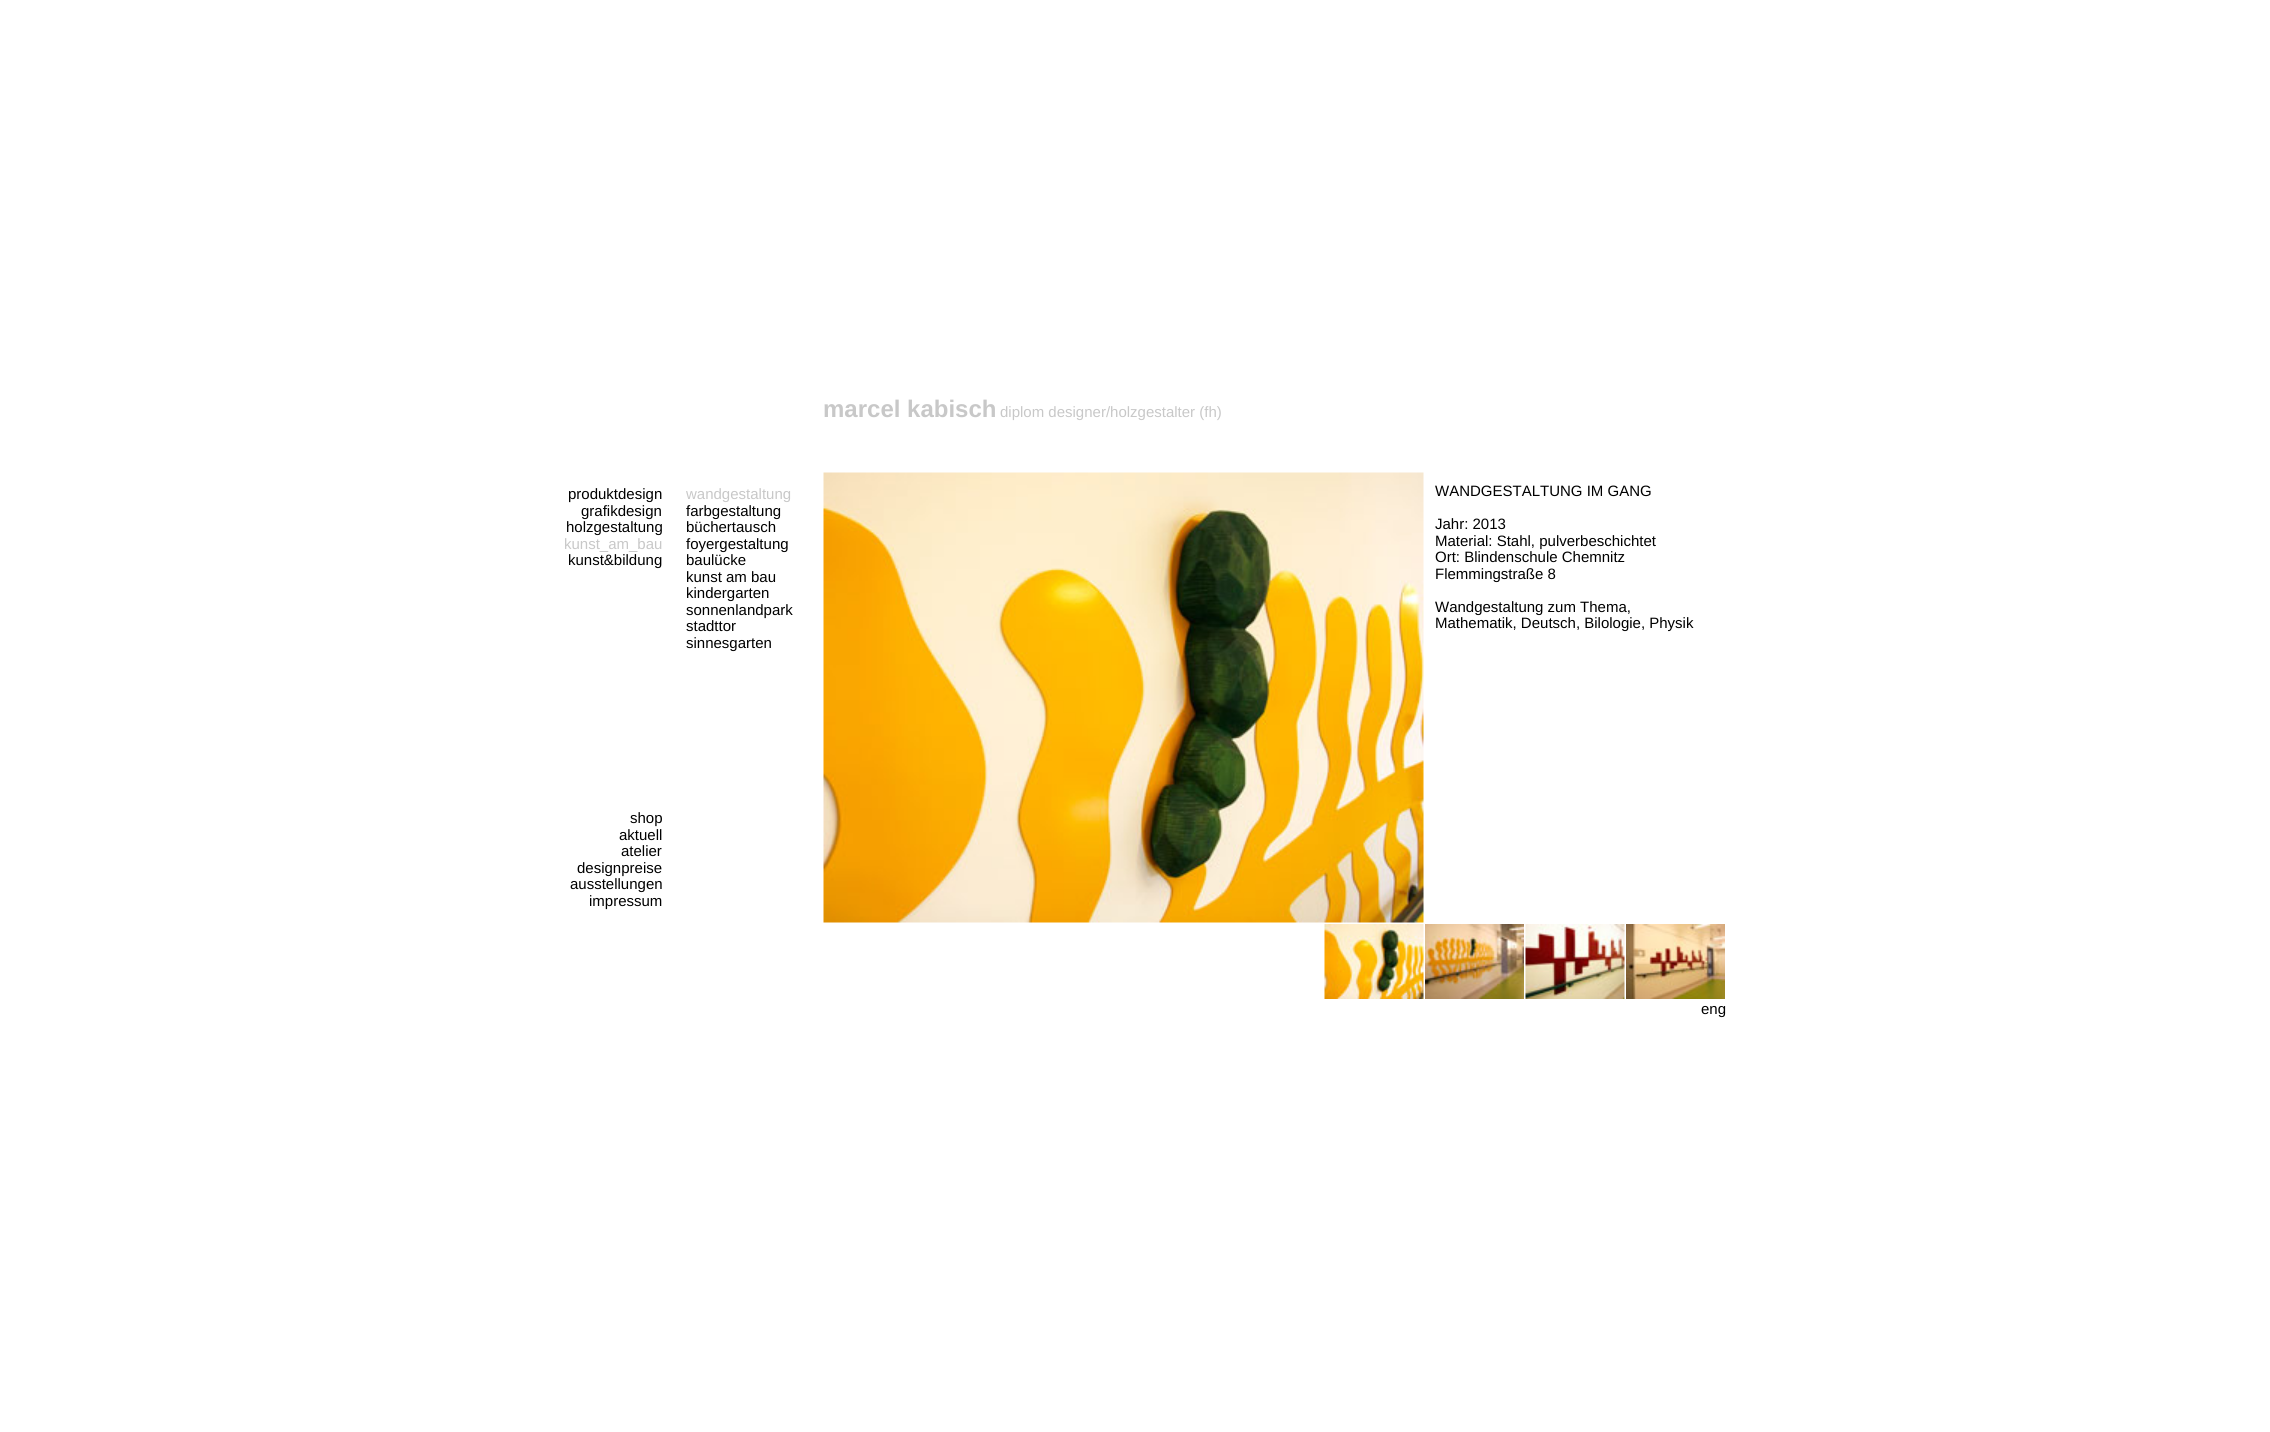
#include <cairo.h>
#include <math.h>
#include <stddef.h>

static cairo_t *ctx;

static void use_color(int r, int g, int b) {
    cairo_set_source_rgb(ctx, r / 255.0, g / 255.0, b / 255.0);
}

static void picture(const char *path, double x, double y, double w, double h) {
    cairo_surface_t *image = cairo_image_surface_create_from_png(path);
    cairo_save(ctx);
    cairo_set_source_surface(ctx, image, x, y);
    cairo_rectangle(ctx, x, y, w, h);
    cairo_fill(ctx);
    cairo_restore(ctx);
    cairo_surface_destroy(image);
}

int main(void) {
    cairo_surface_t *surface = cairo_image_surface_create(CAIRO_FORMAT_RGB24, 2270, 1432);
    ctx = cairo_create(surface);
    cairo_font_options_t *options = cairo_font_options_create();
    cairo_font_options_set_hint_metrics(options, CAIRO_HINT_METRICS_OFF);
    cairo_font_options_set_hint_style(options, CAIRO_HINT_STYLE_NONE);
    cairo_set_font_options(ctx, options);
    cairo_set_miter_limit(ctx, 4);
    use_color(255, 255, 255);
    cairo_paint(ctx);
    cairo_select_font_face(ctx, "Liberation Sans", CAIRO_FONT_SLANT_NORMAL, CAIRO_FONT_WEIGHT_BOLD);
    cairo_set_font_size(ctx, 24);
    use_color(200, 200, 200);
    cairo_move_to(ctx, 823, 417);
    cairo_show_text(ctx, "marcel kabisch");
    cairo_select_font_face(ctx, "Liberation Sans", CAIRO_FONT_SLANT_NORMAL, CAIRO_FONT_WEIGHT_NORMAL);
    cairo_set_font_size(ctx, 15);
    cairo_move_to(ctx, 1000, 417);
    cairo_show_text(ctx, "diplom designer/holzgestalter (fh)");
    use_color(0, 0, 0);
    cairo_move_to(ctx, 568, 499);
    cairo_show_text(ctx, "produktdesign");
    cairo_move_to(ctx, 581, 516);
    cairo_show_text(ctx, "grafikdesign");
    cairo_move_to(ctx, 566, 532);
    cairo_show_text(ctx, "holzgestaltung");
    use_color(200, 200, 200);
    cairo_move_to(ctx, 564, 549);
    cairo_show_text(ctx, "kunst_am_bau");
    use_color(0, 0, 0);
    cairo_move_to(ctx, 568, 565);
    cairo_show_text(ctx, "kunst&bildung");
    use_color(200, 200, 200);
    cairo_move_to(ctx, 686, 499);
    cairo_show_text(ctx, "wandgestaltung");
    use_color(0, 0, 0);
    cairo_move_to(ctx, 686, 516);
    cairo_show_text(ctx, "farbgestaltung");
    cairo_move_to(ctx, 686, 532);
    cairo_show_text(ctx, "büchertausch");
    cairo_move_to(ctx, 686, 549);
    cairo_show_text(ctx, "foyergestaltung");
    cairo_move_to(ctx, 686, 565);
    cairo_show_text(ctx, "baulücke");
    cairo_move_to(ctx, 686, 582);
    cairo_show_text(ctx, "kunst am bau");
    cairo_move_to(ctx, 686, 598);
    cairo_show_text(ctx, "kindergarten");
    cairo_move_to(ctx, 686, 615);
    cairo_show_text(ctx, "sonnenlandpark");
    cairo_move_to(ctx, 686, 631);
    cairo_show_text(ctx, "stadttor");
    cairo_move_to(ctx, 686, 648);
    cairo_show_text(ctx, "sinnesgarten");
    cairo_move_to(ctx, 630, 823);
    cairo_show_text(ctx, "shop");
    cairo_move_to(ctx, 619, 840);
    cairo_show_text(ctx, "aktuell");
    cairo_move_to(ctx, 621, 856);
    cairo_show_text(ctx, "atelier");
    cairo_move_to(ctx, 577, 873);
    cairo_show_text(ctx, "designpreise");
    cairo_move_to(ctx, 570, 889);
    cairo_show_text(ctx, "ausstellungen");
    cairo_move_to(ctx, 589, 906);
    cairo_show_text(ctx, "impressum");
    picture("img1.png", 823, 472, 601, 451);
    cairo_move_to(ctx, 1435, 496);
    cairo_show_text(ctx, "WANDGESTALTUNG IM GANG");
    cairo_move_to(ctx, 1435, 529);
    cairo_show_text(ctx, "Jahr: 2013");
    cairo_move_to(ctx, 1435, 546);
    cairo_show_text(ctx, "Material: Stahl, pulverbeschichtet");
    cairo_move_to(ctx, 1435, 562);
    cairo_show_text(ctx, "Ort: Blindenschule Chemnitz");
    cairo_move_to(ctx, 1435, 579);
    cairo_show_text(ctx, "Flemmingstraße 8");
    cairo_move_to(ctx, 1435, 612);
    cairo_show_text(ctx, "Wandgestaltung zum Thema,");
    cairo_move_to(ctx, 1435, 628);
    cairo_show_text(ctx, "Mathematik, Deutsch, Bilologie, Physik");
    picture("img2.png", 1324, 924, 100, 75);
    picture("img3.png", 1425, 924, 99, 75);
    picture("img4.png", 1525, 924, 100, 75);
    picture("img5.png", 1626, 924, 99, 75);
    cairo_move_to(ctx, 1701, 1014);
    cairo_show_text(ctx, "eng");
    cairo_surface_write_to_png(surface, "result.png");
    cairo_font_options_destroy(options);
    cairo_destroy(ctx);
    cairo_surface_destroy(surface);
    return 0;
}
